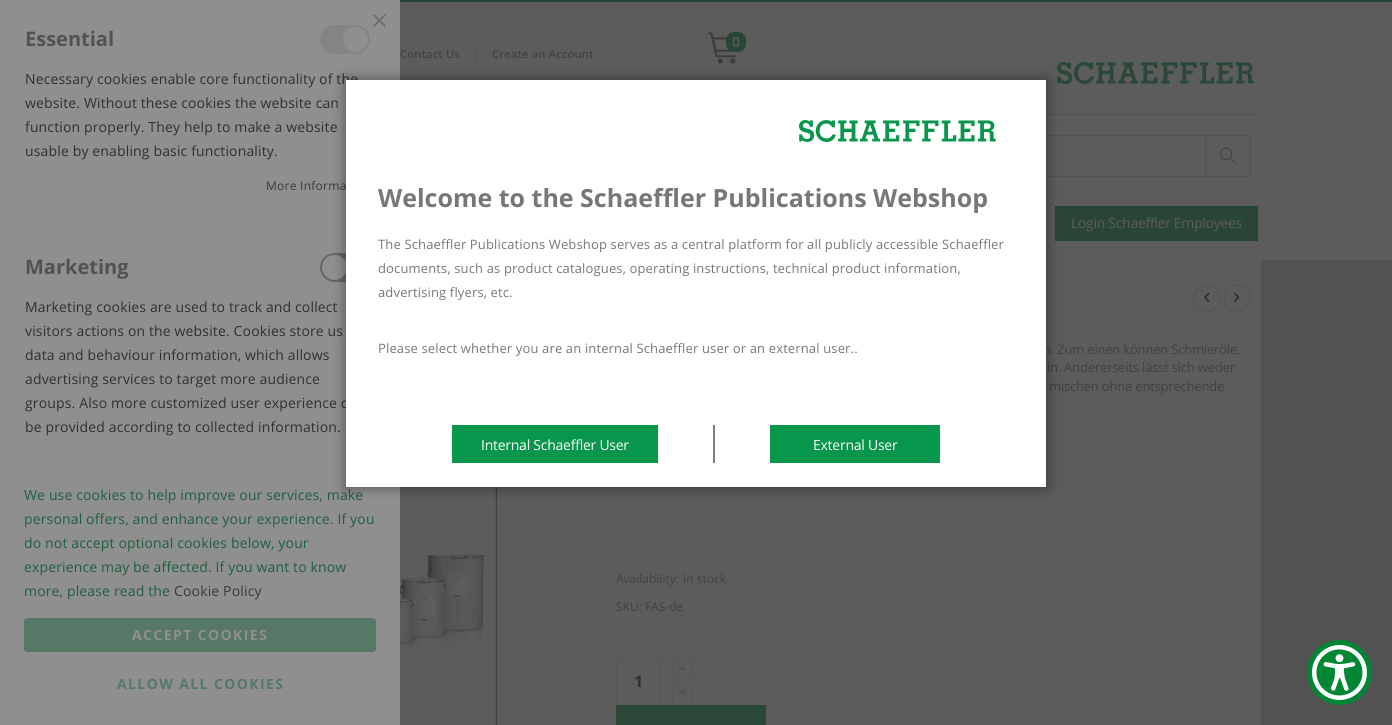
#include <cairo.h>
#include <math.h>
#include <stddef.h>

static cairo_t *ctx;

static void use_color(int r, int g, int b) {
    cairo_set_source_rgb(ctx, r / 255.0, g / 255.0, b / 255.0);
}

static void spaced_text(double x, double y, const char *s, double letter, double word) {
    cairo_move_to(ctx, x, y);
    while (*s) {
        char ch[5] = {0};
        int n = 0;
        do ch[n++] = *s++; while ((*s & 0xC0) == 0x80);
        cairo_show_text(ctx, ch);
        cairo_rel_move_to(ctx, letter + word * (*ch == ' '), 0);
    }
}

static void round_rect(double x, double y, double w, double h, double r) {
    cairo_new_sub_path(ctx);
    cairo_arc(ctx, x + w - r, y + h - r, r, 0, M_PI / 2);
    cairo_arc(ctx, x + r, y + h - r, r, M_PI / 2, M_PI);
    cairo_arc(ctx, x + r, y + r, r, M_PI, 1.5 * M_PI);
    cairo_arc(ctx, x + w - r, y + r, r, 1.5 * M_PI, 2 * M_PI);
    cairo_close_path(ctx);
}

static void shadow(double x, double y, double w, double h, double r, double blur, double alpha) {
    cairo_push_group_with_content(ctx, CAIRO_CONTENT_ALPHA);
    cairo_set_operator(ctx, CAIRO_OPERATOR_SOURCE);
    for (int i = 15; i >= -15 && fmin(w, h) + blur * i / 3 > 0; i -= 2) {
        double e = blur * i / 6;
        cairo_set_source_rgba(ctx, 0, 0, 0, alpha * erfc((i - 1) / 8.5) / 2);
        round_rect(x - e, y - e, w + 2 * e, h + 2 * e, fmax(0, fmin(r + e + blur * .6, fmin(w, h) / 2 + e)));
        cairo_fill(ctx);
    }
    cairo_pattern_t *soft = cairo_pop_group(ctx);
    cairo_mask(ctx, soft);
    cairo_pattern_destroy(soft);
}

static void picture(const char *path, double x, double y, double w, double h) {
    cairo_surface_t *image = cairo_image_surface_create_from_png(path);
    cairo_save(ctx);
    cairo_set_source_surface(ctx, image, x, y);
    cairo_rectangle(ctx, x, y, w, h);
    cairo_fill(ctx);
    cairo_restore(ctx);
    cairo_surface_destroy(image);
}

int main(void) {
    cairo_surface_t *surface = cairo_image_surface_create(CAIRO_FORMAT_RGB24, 1392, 725);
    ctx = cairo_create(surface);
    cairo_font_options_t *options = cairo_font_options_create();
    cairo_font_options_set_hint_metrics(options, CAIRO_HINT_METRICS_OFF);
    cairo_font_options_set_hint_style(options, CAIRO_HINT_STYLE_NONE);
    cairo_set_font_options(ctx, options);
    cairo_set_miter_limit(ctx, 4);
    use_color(82, 82, 82);
    cairo_paint(ctx);
    use_color(92, 92, 92);
    cairo_rectangle(ctx, 498, 260, 763, 465);
    cairo_fill(ctx);
    cairo_rectangle(ctx, 141.5, 280.5, 452, 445);
    use_color(90, 90, 90);
    cairo_set_line_width(ctx, 1);
    cairo_stroke(ctx);
    use_color(143, 143, 143);
    cairo_rectangle(ctx, 0, 0, 400, 725);
    cairo_fill(ctx);
    use_color(103, 103, 103);
    cairo_new_path(ctx);
    cairo_move_to(ctx, 374, 14);
    cairo_line_to(ctx, 386, 26);
    cairo_line_to(ctx, 385, 27);
    cairo_line_to(ctx, 373, 15);
    cairo_close_path(ctx);
    cairo_fill(ctx);
    cairo_new_path(ctx);
    cairo_move_to(ctx, 385, 14);
    cairo_line_to(ctx, 386, 15);
    cairo_line_to(ctx, 374, 27);
    cairo_line_to(ctx, 373, 26);
    cairo_close_path(ctx);
    cairo_fill(ctx);
    cairo_select_font_face(ctx, "Open Sans", CAIRO_FONT_SLANT_NORMAL, CAIRO_FONT_WEIGHT_BOLD);
    cairo_set_font_size(ctx, 20);
    use_color(82, 82, 82);
    cairo_move_to(ctx, 25, 46);
    cairo_show_text(ctx, "Essential");
    use_color(132, 132, 132);
    round_rect(320, 25, 50, 29, 14.5);
    cairo_fill(ctx);
    use_color(143, 143, 143);
    cairo_arc(ctx, 355.5, 39.5, 12.5, 0, 2 * M_PI);
    cairo_fill(ctx);
    cairo_select_font_face(ctx, "Open Sans", CAIRO_FONT_SLANT_NORMAL, CAIRO_FONT_WEIGHT_NORMAL);
    cairo_set_font_size(ctx, 14);
    use_color(47, 48, 49);
    spaced_text(25, 84, "Necessary cookies enable core functionality of the", 0.14, 0);
    spaced_text(25, 108, "website. Without these cookies the website can", 0.14, 0);
    spaced_text(25, 132, "function properly. They help to make a website", 0.14, 0);
    spaced_text(25, 156, "usable by enabling basic functionality.", 0.14, 0);
    cairo_set_font_size(ctx, 12);
    use_color(57, 59, 58);
    spaced_text(266, 190, "More Informa", 0.25, 0);
    cairo_select_font_face(ctx, "Open Sans", CAIRO_FONT_SLANT_NORMAL, CAIRO_FONT_WEIGHT_BOLD);
    cairo_set_font_size(ctx, 20);
    use_color(82, 82, 82);
    cairo_move_to(ctx, 25, 274);
    cairo_show_text(ctx, "Marketing");
    use_color(102, 102, 102);
    round_rect(320, 253, 50, 29, 14.5);
    cairo_fill(ctx);
    use_color(143, 143, 143);
    cairo_arc(ctx, 334.5, 267.5, 12.5, 0, 2 * M_PI);
    cairo_fill(ctx);
    cairo_select_font_face(ctx, "Open Sans", CAIRO_FONT_SLANT_NORMAL, CAIRO_FONT_WEIGHT_NORMAL);
    cairo_set_font_size(ctx, 14);
    use_color(47, 48, 49);
    spaced_text(25, 312, "Marketing cookies are used to track and collect", 0.14, 0);
    spaced_text(25, 336, "visitors actions on the website. Cookies store us", 0.14, 0);
    spaced_text(25, 360, "data and behaviour information, which allows", 0.14, 0);
    spaced_text(25, 384, "advertising services to target more audience", 0.14, 0);
    spaced_text(25, 408, "groups. Also more customized user experience c", 0.14, 0);
    spaced_text(25, 432, "be provided according to collected information.", 0.14, 0);
    use_color(32, 95, 62);
    spaced_text(24, 500, "We use cookies to help improve our services, make", 0.14, 0);
    spaced_text(24, 524, "personal offers, and enhance your experience. If you", 0.14, 0);
    spaced_text(24, 548, "do not accept optional cookies below, your", 0.14, 0);
    spaced_text(24, 572, "experience may be affected. If you want to know", 0.14, 0);
    spaced_text(24, 596, "more, please read the", 0.14, 0);
    use_color(57, 59, 58);
    spaced_text(174, 596, "Cookie Policy", 0.14, 0);
    use_color(87, 119, 103);
    round_rect(24, 618, 352, 34, 3);
    cairo_fill(ctx);
    cairo_select_font_face(ctx, "Open Sans", CAIRO_FONT_SLANT_NORMAL, CAIRO_FONT_WEIGHT_BOLD);
    use_color(143, 143, 143);
    spaced_text(132, 640, "ACCEPT COOKIES", 1.4, 0);
    use_color(87, 119, 103);
    spaced_text(117, 689, "ALLOW ALL COOKIES", 1.4, 0);
    use_color(92, 92, 92);
    cairo_rectangle(ctx, 400, 2, 992, 258);
    cairo_fill(ctx);
    use_color(41, 69, 53);
    cairo_rectangle(ctx, 400, 0, 992, 2);
    cairo_fill(ctx);
    use_color(82, 82, 82);
    cairo_rectangle(ctx, 1046, 114, 210, 1);
    cairo_fill(ctx);
    picture("img1.png", 708, 32, 28, 32);
    use_color(41, 69, 53);
    round_rect(726, 32, 20, 20, 8);
    cairo_fill(ctx);
    cairo_select_font_face(ctx, "Open Sans SemiBold", CAIRO_FONT_SLANT_NORMAL, CAIRO_FONT_WEIGHT_NORMAL);
    use_color(92, 92, 92);
    cairo_move_to(ctx, 732, 47);
    cairo_show_text(ctx, "0");
    picture("img2.png", 1057, 62, 197, 22);
    cairo_set_font_size(ctx, 11);
    use_color(65, 65, 65);
    spaced_text(400, 58, "Contact Us", 0.25, 0);
    use_color(82, 82, 82);
    cairo_rectangle(ctx, 476, 46, 1, 15);
    cairo_fill(ctx);
    use_color(65, 65, 65);
    spaced_text(492, 58, "Create an Account", 0.25, 0);
    cairo_rectangle(ctx, 752.5, 135.5, 498, 41);
    use_color(82, 82, 82);
    cairo_stroke(ctx);
    cairo_rectangle(ctx, 1205.5, 135.5, 45, 41);
    cairo_stroke(ctx);
    picture("img3.png", 1220, 147, 16, 17);
    use_color(41, 69, 53);
    cairo_rectangle(ctx, 1055, 206, 203, 35);
    cairo_fill(ctx);
    cairo_select_font_face(ctx, "Open Sans", CAIRO_FONT_SLANT_NORMAL, CAIRO_FONT_WEIGHT_NORMAL);
    cairo_set_font_size(ctx, 14);
    use_color(92, 92, 92);
    spaced_text(1071, 228, "Login Schaeffler Employees", -0.3, 0);
    picture("img4.png", 400, 487, 98, 238);
    cairo_arc(ctx, 1207, 298, 13, 0, 2 * M_PI);
    use_color(87, 87, 87);
    cairo_set_line_width(ctx, 2);
    cairo_stroke(ctx);
    picture("img5.png", 1204, 292, 6, 10);
    cairo_arc(ctx, 1237, 298, 13, 0, 2 * M_PI);
    cairo_stroke(ctx);
    picture("img6.png", 1234, 292, 6, 10);
    cairo_set_font_size(ctx, 13);
    use_color(65, 65, 65);
    spaced_text(1043, 354, "n. Zum einen können Schmieröle,", -0.2, 0);
    spaced_text(1047, 372, "in. Andererseits lässt sich weder", -0.2, 0);
    spaced_text(1049, 391, "mischen ohne entsprechende", -0.2, 0);
    use_color(87, 87, 87);
    cairo_rectangle(ctx, 616, 545, 635, 1);
    cairo_fill(ctx);
    cairo_set_font_size(ctx, 12);
    use_color(65, 65, 65);
    cairo_move_to(ctx, 616, 583);
    cairo_show_text(ctx, "Availability:");
    cairo_move_to(ctx, 683, 583);
    cairo_show_text(ctx, "In stock");
    cairo_move_to(ctx, 616, 611);
    cairo_show_text(ctx, "SKU: FAS-de");
    cairo_rectangle(ctx, 616.5, 657.5, 43, 47);
    use_color(87, 87, 87);
    cairo_set_line_width(ctx, 1);
    cairo_stroke(ctx);
    cairo_select_font_face(ctx, "Open Sans", CAIRO_FONT_SLANT_NORMAL, CAIRO_FONT_WEIGHT_BOLD);
    cairo_set_font_size(ctx, 16);
    use_color(47, 48, 49);
    cairo_move_to(ctx, 634, 687);
    cairo_show_text(ctx, "1");
    cairo_rectangle(ctx, 672.5, 657.5, 19, 21);
    use_color(87, 87, 87);
    cairo_stroke(ctx);
    picture("img7.png", 679, 665, 8, 5);
    cairo_rectangle(ctx, 672.5, 682.5, 19, 22);
    cairo_stroke(ctx);
    picture("img8.png", 679, 690, 8, 5);
    use_color(42, 71, 56);
    cairo_rectangle(ctx, 616, 705, 150, 20);
    cairo_fill(ctx);
    use_color(0, 0, 0);
    shadow(344, 78, 704, 411, 0, 6, 0.35);
    use_color(255, 255, 255);
    cairo_rectangle(ctx, 346, 80, 700, 407);
    cairo_fill(ctx);
    picture("img9.png", 799, 120, 197, 22);
    cairo_set_font_size(ctx, 25);
    use_color(119, 119, 119);
    cairo_move_to(ctx, 378, 207);
    cairo_show_text(ctx, "Welcome to the Schaeffler Publications Webshop");
    cairo_select_font_face(ctx, "Open Sans", CAIRO_FONT_SLANT_NORMAL, CAIRO_FONT_WEIGHT_NORMAL);
    cairo_set_font_size(ctx, 13);
    spaced_text(378, 249, "The Schaeffler Publications Webshop serves as a central platform for all publicly accessible Schaeffler", 0.14, 0);
    spaced_text(378, 273, "documents, such as product catalogues, operating instructions, technical product information,", 0.14, 0);
    spaced_text(378, 297, "advertising flyers, etc.", 0.14, 0);
    spaced_text(378, 353, "Please select whether you are an internal Schaeffler user or an external user..", 0.14, 0);
    use_color(8, 149, 76);
    cairo_rectangle(ctx, 452, 425, 206, 38);
    cairo_fill(ctx);
    cairo_set_font_size(ctx, 14);
    use_color(255, 255, 255);
    spaced_text(481, 450, "Internal Schaeffler User", -0.25, 0);
    use_color(128, 128, 128);
    cairo_rectangle(ctx, 713, 425, 2, 38);
    cairo_fill(ctx);
    use_color(8, 149, 76);
    cairo_rectangle(ctx, 770, 425, 170, 38);
    cairo_fill(ctx);
    use_color(255, 255, 255);
    spaced_text(813, 450, "External User", -0.25, 0);
    use_color(1, 135, 52);
    cairo_new_path(ctx);
    cairo_arc(ctx, 1339.5, 672.5, 32.5, 0, 2 * M_PI);
    cairo_fill(ctx);
    picture("img10.png", 1312, 645, 55, 55);
    cairo_surface_write_to_png(surface, "result.png");
    cairo_font_options_destroy(options);
    cairo_destroy(ctx);
    cairo_surface_destroy(surface);
    return 0;
}
